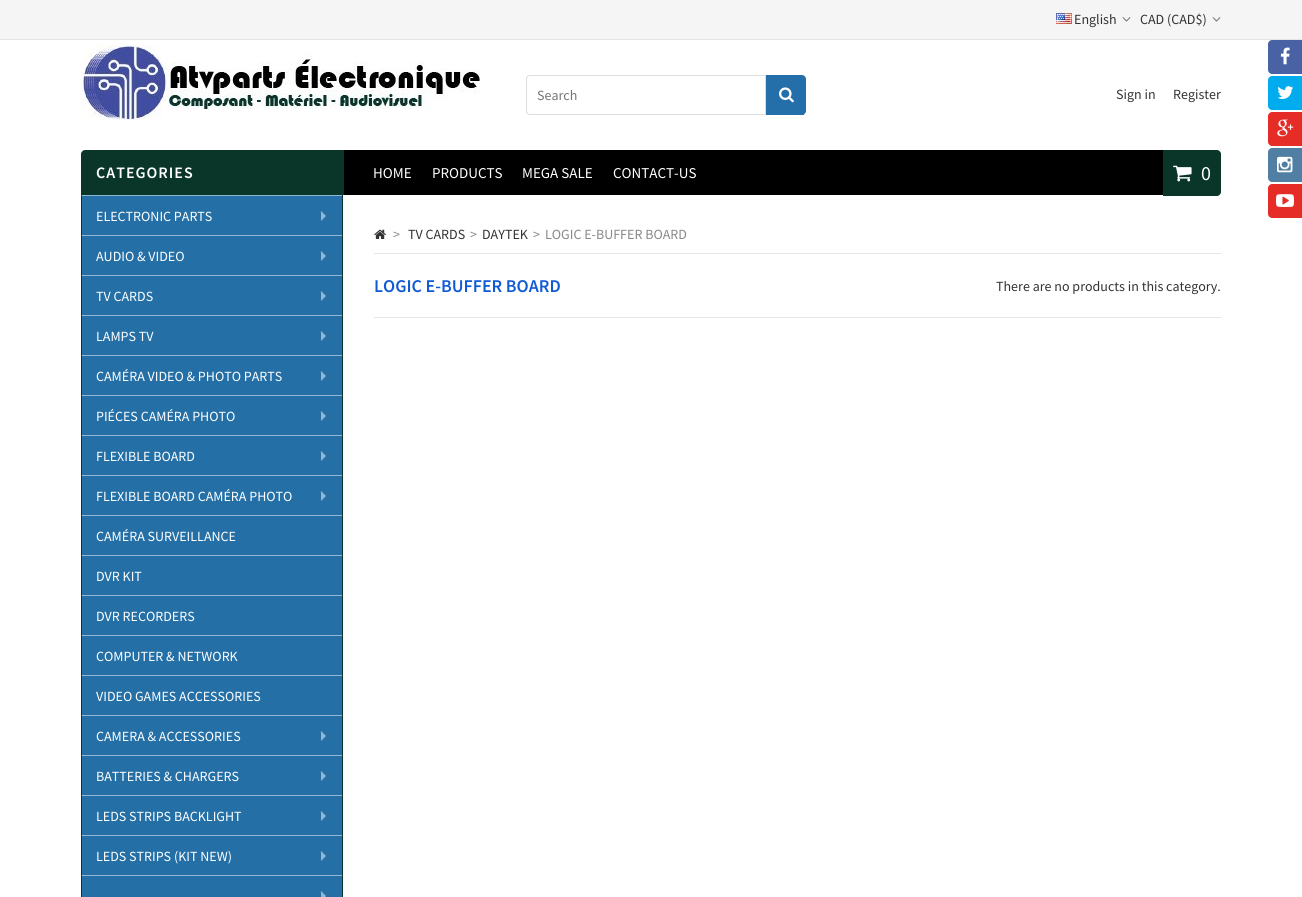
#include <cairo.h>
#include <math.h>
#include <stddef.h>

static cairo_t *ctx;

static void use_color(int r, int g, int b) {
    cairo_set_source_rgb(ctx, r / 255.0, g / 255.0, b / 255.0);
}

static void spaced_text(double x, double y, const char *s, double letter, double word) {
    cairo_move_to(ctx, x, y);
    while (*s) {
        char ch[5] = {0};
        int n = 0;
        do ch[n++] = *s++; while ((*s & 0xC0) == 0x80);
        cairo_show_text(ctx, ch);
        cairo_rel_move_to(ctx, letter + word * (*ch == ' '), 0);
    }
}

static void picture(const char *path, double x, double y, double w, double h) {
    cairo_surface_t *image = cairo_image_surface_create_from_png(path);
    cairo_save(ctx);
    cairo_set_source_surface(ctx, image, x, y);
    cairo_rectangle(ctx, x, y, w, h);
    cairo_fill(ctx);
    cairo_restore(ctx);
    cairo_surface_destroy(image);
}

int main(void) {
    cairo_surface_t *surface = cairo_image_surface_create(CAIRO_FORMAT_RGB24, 1302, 897);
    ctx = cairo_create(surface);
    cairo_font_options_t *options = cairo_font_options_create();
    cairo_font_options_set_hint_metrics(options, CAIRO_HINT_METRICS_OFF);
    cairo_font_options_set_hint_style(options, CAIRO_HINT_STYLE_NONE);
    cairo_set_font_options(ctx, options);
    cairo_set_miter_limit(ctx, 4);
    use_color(255, 255, 255);
    cairo_paint(ctx);
    use_color(245, 245, 245);
    cairo_rectangle(ctx, 0, 0, 1302, 39);
    cairo_fill(ctx);
    use_color(229, 229, 229);
    cairo_rectangle(ctx, 0, 39, 1302, 1);
    cairo_fill(ctx);
    picture("img1.png", 1056, 13, 16, 11);
    cairo_select_font_face(ctx, "Source Sans Pro", CAIRO_FONT_SLANT_NORMAL, CAIRO_FONT_WEIGHT_NORMAL);
    cairo_set_font_size(ctx, 14);
    use_color(51, 51, 51);
    cairo_move_to(ctx, 1074, 24);
    cairo_show_text(ctx, "English");
    picture("img2.png", 1122, 17, 9, 5);
    cairo_move_to(ctx, 1140, 24);
    cairo_show_text(ctx, "CAD (CAD$)");
    picture("img2.png", 1212, 17, 9, 5);
    picture("img3.png", 81, 45, 399, 75);
    cairo_new_path(ctx);
    cairo_move_to(ctx, 530, 75.5);
    cairo_line_to(ctx, 765.5, 75.5);
    cairo_line_to(ctx, 765.5, 114.5);
    cairo_line_to(ctx, 530, 114.5);
    cairo_curve_to(ctx, 528, 114.5, 526.5, 113, 526.5, 111);
    cairo_line_to(ctx, 526.5, 79);
    cairo_curve_to(ctx, 526.5, 77, 528, 75.5, 530, 75.5);
    cairo_close_path(ctx);
    use_color(221, 221, 221);
    cairo_set_line_width(ctx, 1);
    cairo_stroke(ctx);
    use_color(117, 117, 117);
    cairo_move_to(ctx, 537, 100);
    cairo_show_text(ctx, "Search");
    use_color(36, 111, 170);
    cairo_new_path(ctx);
    cairo_move_to(ctx, 766, 75);
    cairo_line_to(ctx, 802, 75);
    cairo_curve_to(ctx, 804, 75, 806, 77, 806, 79);
    cairo_line_to(ctx, 806, 111);
    cairo_curve_to(ctx, 806, 113, 804, 115, 802, 115);
    cairo_line_to(ctx, 766, 115);
    cairo_close_path(ctx);
    cairo_fill(ctx);
    cairo_rectangle(ctx, 802, 114, 2, 1);
    cairo_fill(ctx);
    picture("img4.png", 779, 87, 15, 16);
    use_color(51, 51, 51);
    cairo_move_to(ctx, 1116, 99);
    cairo_show_text(ctx, "Sign in");
    cairo_move_to(ctx, 1173, 99);
    cairo_show_text(ctx, "Register");
    use_color(0, 0, 0);
    cairo_rectangle(ctx, 344, 150, 819, 45);
    cairo_fill(ctx);
    use_color(10, 54, 42);
    cairo_new_path(ctx);
    cairo_move_to(ctx, 1163, 150);
    cairo_line_to(ctx, 1217, 150);
    cairo_curve_to(ctx, 1219, 150, 1221, 152, 1221, 154);
    cairo_line_to(ctx, 1221, 192);
    cairo_curve_to(ctx, 1221, 194, 1219, 196, 1217, 196);
    cairo_line_to(ctx, 1163, 196);
    cairo_close_path(ctx);
    cairo_fill(ctx);
    picture("img5.png", 1173, 165, 19, 17);
    cairo_set_font_size(ctx, 20);
    use_color(255, 255, 255);
    cairo_move_to(ctx, 1201, 180);
    cairo_show_text(ctx, "0");
    cairo_set_font_size(ctx, 15);
    cairo_move_to(ctx, 373, 178);
    cairo_show_text(ctx, "HOME");
    cairo_move_to(ctx, 432, 178);
    cairo_show_text(ctx, "PRODUCTS");
    cairo_move_to(ctx, 522, 178);
    cairo_show_text(ctx, "MEGA SALE");
    cairo_move_to(ctx, 613, 178);
    cairo_show_text(ctx, "CONTACT-US");
    use_color(10, 54, 42);
    cairo_new_path(ctx);
    cairo_move_to(ctx, 85, 150);
    cairo_line_to(ctx, 344, 150);
    cairo_line_to(ctx, 344, 195);
    cairo_line_to(ctx, 81, 195);
    cairo_line_to(ctx, 81, 154);
    cairo_curve_to(ctx, 81, 152, 83, 150, 85, 150);
    cairo_close_path(ctx);
    cairo_fill(ctx);
    cairo_select_font_face(ctx, "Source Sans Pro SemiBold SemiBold", CAIRO_FONT_SLANT_NORMAL, CAIRO_FONT_WEIGHT_NORMAL);
    cairo_set_font_size(ctx, 16);
    use_color(255, 255, 255);
    spaced_text(96, 178, "CATEGORIES", 1, 0);
    use_color(10, 54, 42);
    cairo_rectangle(ctx, 342, 195, 1, 702);
    cairo_fill(ctx);
    use_color(36, 111, 165);
    cairo_rectangle(ctx, 81, 195, 261, 702);
    cairo_fill(ctx);
    use_color(146, 183, 210);
    cairo_new_path(ctx);
    cairo_move_to(ctx, 81, 195);
    cairo_line_to(ctx, 342, 195);
    cairo_line_to(ctx, 342, 196);
    cairo_line_to(ctx, 82, 196);
    cairo_close_path(ctx);
    cairo_fill(ctx);
    use_color(10, 54, 42);
    cairo_new_path(ctx);
    cairo_move_to(ctx, 81, 235);
    cairo_line_to(ctx, 81, 195);
    cairo_line_to(ctx, 82, 196);
    cairo_line_to(ctx, 82, 235);
    cairo_close_path(ctx);
    cairo_fill(ctx);
    cairo_select_font_face(ctx, "Source Sans Pro", CAIRO_FONT_SLANT_NORMAL, CAIRO_FONT_WEIGHT_NORMAL);
    cairo_set_font_size(ctx, 14);
    use_color(255, 255, 255);
    cairo_move_to(ctx, 96, 221);
    cairo_show_text(ctx, "ELECTRONIC PARTS");
    use_color(146, 183, 210);
    cairo_new_path(ctx);
    cairo_move_to(ctx, 321, 221);
    cairo_line_to(ctx, 321, 211);
    cairo_line_to(ctx, 326, 216);
    cairo_close_path(ctx);
    cairo_fill(ctx);
    cairo_new_path(ctx);
    cairo_move_to(ctx, 81, 235);
    cairo_line_to(ctx, 342, 235);
    cairo_line_to(ctx, 342, 236);
    cairo_line_to(ctx, 82, 236);
    cairo_close_path(ctx);
    cairo_fill(ctx);
    use_color(10, 54, 42);
    cairo_new_path(ctx);
    cairo_move_to(ctx, 81, 275);
    cairo_line_to(ctx, 81, 235);
    cairo_line_to(ctx, 82, 236);
    cairo_line_to(ctx, 82, 275);
    cairo_close_path(ctx);
    cairo_fill(ctx);
    use_color(255, 255, 255);
    cairo_move_to(ctx, 96, 261);
    cairo_show_text(ctx, "AUDIO & VIDEO");
    use_color(146, 183, 210);
    cairo_new_path(ctx);
    cairo_move_to(ctx, 321, 261);
    cairo_line_to(ctx, 321, 251);
    cairo_line_to(ctx, 326, 256);
    cairo_close_path(ctx);
    cairo_fill(ctx);
    cairo_new_path(ctx);
    cairo_move_to(ctx, 81, 275);
    cairo_line_to(ctx, 342, 275);
    cairo_line_to(ctx, 342, 276);
    cairo_line_to(ctx, 82, 276);
    cairo_close_path(ctx);
    cairo_fill(ctx);
    use_color(10, 54, 42);
    cairo_new_path(ctx);
    cairo_move_to(ctx, 81, 315);
    cairo_line_to(ctx, 81, 275);
    cairo_line_to(ctx, 82, 276);
    cairo_line_to(ctx, 82, 315);
    cairo_close_path(ctx);
    cairo_fill(ctx);
    use_color(255, 255, 255);
    cairo_move_to(ctx, 96, 301);
    cairo_show_text(ctx, "TV CARDS");
    use_color(146, 183, 210);
    cairo_new_path(ctx);
    cairo_move_to(ctx, 321, 301);
    cairo_line_to(ctx, 321, 291);
    cairo_line_to(ctx, 326, 296);
    cairo_close_path(ctx);
    cairo_fill(ctx);
    cairo_new_path(ctx);
    cairo_move_to(ctx, 81, 315);
    cairo_line_to(ctx, 342, 315);
    cairo_line_to(ctx, 342, 316);
    cairo_line_to(ctx, 82, 316);
    cairo_close_path(ctx);
    cairo_fill(ctx);
    use_color(10, 54, 42);
    cairo_new_path(ctx);
    cairo_move_to(ctx, 81, 355);
    cairo_line_to(ctx, 81, 315);
    cairo_line_to(ctx, 82, 316);
    cairo_line_to(ctx, 82, 355);
    cairo_close_path(ctx);
    cairo_fill(ctx);
    use_color(255, 255, 255);
    cairo_move_to(ctx, 96, 341);
    cairo_show_text(ctx, "LAMPS TV");
    use_color(146, 183, 210);
    cairo_new_path(ctx);
    cairo_move_to(ctx, 321, 341);
    cairo_line_to(ctx, 321, 331);
    cairo_line_to(ctx, 326, 336);
    cairo_close_path(ctx);
    cairo_fill(ctx);
    cairo_new_path(ctx);
    cairo_move_to(ctx, 81, 355);
    cairo_line_to(ctx, 342, 355);
    cairo_line_to(ctx, 342, 356);
    cairo_line_to(ctx, 82, 356);
    cairo_close_path(ctx);
    cairo_fill(ctx);
    use_color(10, 54, 42);
    cairo_new_path(ctx);
    cairo_move_to(ctx, 81, 395);
    cairo_line_to(ctx, 81, 355);
    cairo_line_to(ctx, 82, 356);
    cairo_line_to(ctx, 82, 395);
    cairo_close_path(ctx);
    cairo_fill(ctx);
    use_color(255, 255, 255);
    cairo_move_to(ctx, 96, 381);
    cairo_show_text(ctx, "CAMÉRA VIDEO & PHOTO PARTS");
    use_color(146, 183, 210);
    cairo_new_path(ctx);
    cairo_move_to(ctx, 321, 381);
    cairo_line_to(ctx, 321, 371);
    cairo_line_to(ctx, 326, 376);
    cairo_close_path(ctx);
    cairo_fill(ctx);
    cairo_new_path(ctx);
    cairo_move_to(ctx, 81, 395);
    cairo_line_to(ctx, 342, 395);
    cairo_line_to(ctx, 342, 396);
    cairo_line_to(ctx, 82, 396);
    cairo_close_path(ctx);
    cairo_fill(ctx);
    use_color(10, 54, 42);
    cairo_new_path(ctx);
    cairo_move_to(ctx, 81, 435);
    cairo_line_to(ctx, 81, 395);
    cairo_line_to(ctx, 82, 396);
    cairo_line_to(ctx, 82, 435);
    cairo_close_path(ctx);
    cairo_fill(ctx);
    use_color(255, 255, 255);
    cairo_move_to(ctx, 96, 421);
    cairo_show_text(ctx, "PIÉCES CAMÉRA PHOTO");
    use_color(146, 183, 210);
    cairo_new_path(ctx);
    cairo_move_to(ctx, 321, 421);
    cairo_line_to(ctx, 321, 411);
    cairo_line_to(ctx, 326, 416);
    cairo_close_path(ctx);
    cairo_fill(ctx);
    cairo_new_path(ctx);
    cairo_move_to(ctx, 81, 435);
    cairo_line_to(ctx, 342, 435);
    cairo_line_to(ctx, 342, 436);
    cairo_line_to(ctx, 82, 436);
    cairo_close_path(ctx);
    cairo_fill(ctx);
    use_color(10, 54, 42);
    cairo_new_path(ctx);
    cairo_move_to(ctx, 81, 475);
    cairo_line_to(ctx, 81, 435);
    cairo_line_to(ctx, 82, 436);
    cairo_line_to(ctx, 82, 475);
    cairo_close_path(ctx);
    cairo_fill(ctx);
    use_color(255, 255, 255);
    cairo_move_to(ctx, 96, 461);
    cairo_show_text(ctx, "FLEXIBLE BOARD");
    use_color(146, 183, 210);
    cairo_new_path(ctx);
    cairo_move_to(ctx, 321, 461);
    cairo_line_to(ctx, 321, 451);
    cairo_line_to(ctx, 326, 456);
    cairo_close_path(ctx);
    cairo_fill(ctx);
    cairo_new_path(ctx);
    cairo_move_to(ctx, 81, 475);
    cairo_line_to(ctx, 342, 475);
    cairo_line_to(ctx, 342, 476);
    cairo_line_to(ctx, 82, 476);
    cairo_close_path(ctx);
    cairo_fill(ctx);
    use_color(10, 54, 42);
    cairo_new_path(ctx);
    cairo_move_to(ctx, 81, 515);
    cairo_line_to(ctx, 81, 475);
    cairo_line_to(ctx, 82, 476);
    cairo_line_to(ctx, 82, 515);
    cairo_close_path(ctx);
    cairo_fill(ctx);
    use_color(255, 255, 255);
    cairo_move_to(ctx, 96, 501);
    cairo_show_text(ctx, "FLEXIBLE BOARD CAMÉRA PHOTO");
    use_color(146, 183, 210);
    cairo_new_path(ctx);
    cairo_move_to(ctx, 321, 501);
    cairo_line_to(ctx, 321, 491);
    cairo_line_to(ctx, 326, 496);
    cairo_close_path(ctx);
    cairo_fill(ctx);
    cairo_new_path(ctx);
    cairo_move_to(ctx, 81, 515);
    cairo_line_to(ctx, 342, 515);
    cairo_line_to(ctx, 342, 516);
    cairo_line_to(ctx, 82, 516);
    cairo_close_path(ctx);
    cairo_fill(ctx);
    use_color(10, 54, 42);
    cairo_new_path(ctx);
    cairo_move_to(ctx, 81, 555);
    cairo_line_to(ctx, 81, 515);
    cairo_line_to(ctx, 82, 516);
    cairo_line_to(ctx, 82, 555);
    cairo_close_path(ctx);
    cairo_fill(ctx);
    use_color(255, 255, 255);
    cairo_move_to(ctx, 96, 541);
    cairo_show_text(ctx, "CAMÉRA SURVEILLANCE");
    use_color(146, 183, 210);
    cairo_new_path(ctx);
    cairo_move_to(ctx, 81, 555);
    cairo_line_to(ctx, 342, 555);
    cairo_line_to(ctx, 342, 556);
    cairo_line_to(ctx, 82, 556);
    cairo_close_path(ctx);
    cairo_fill(ctx);
    use_color(10, 54, 42);
    cairo_new_path(ctx);
    cairo_move_to(ctx, 81, 595);
    cairo_line_to(ctx, 81, 555);
    cairo_line_to(ctx, 82, 556);
    cairo_line_to(ctx, 82, 595);
    cairo_close_path(ctx);
    cairo_fill(ctx);
    use_color(255, 255, 255);
    cairo_move_to(ctx, 96, 581);
    cairo_show_text(ctx, "DVR KIT");
    use_color(146, 183, 210);
    cairo_new_path(ctx);
    cairo_move_to(ctx, 81, 595);
    cairo_line_to(ctx, 342, 595);
    cairo_line_to(ctx, 342, 596);
    cairo_line_to(ctx, 82, 596);
    cairo_close_path(ctx);
    cairo_fill(ctx);
    use_color(10, 54, 42);
    cairo_new_path(ctx);
    cairo_move_to(ctx, 81, 635);
    cairo_line_to(ctx, 81, 595);
    cairo_line_to(ctx, 82, 596);
    cairo_line_to(ctx, 82, 635);
    cairo_close_path(ctx);
    cairo_fill(ctx);
    use_color(255, 255, 255);
    cairo_move_to(ctx, 96, 621);
    cairo_show_text(ctx, "DVR RECORDERS");
    use_color(146, 183, 210);
    cairo_new_path(ctx);
    cairo_move_to(ctx, 81, 635);
    cairo_line_to(ctx, 342, 635);
    cairo_line_to(ctx, 342, 636);
    cairo_line_to(ctx, 82, 636);
    cairo_close_path(ctx);
    cairo_fill(ctx);
    use_color(10, 54, 42);
    cairo_new_path(ctx);
    cairo_move_to(ctx, 81, 675);
    cairo_line_to(ctx, 81, 635);
    cairo_line_to(ctx, 82, 636);
    cairo_line_to(ctx, 82, 675);
    cairo_close_path(ctx);
    cairo_fill(ctx);
    use_color(255, 255, 255);
    cairo_move_to(ctx, 96, 661);
    cairo_show_text(ctx, "COMPUTER & NETWORK");
    use_color(146, 183, 210);
    cairo_new_path(ctx);
    cairo_move_to(ctx, 81, 675);
    cairo_line_to(ctx, 342, 675);
    cairo_line_to(ctx, 342, 676);
    cairo_line_to(ctx, 82, 676);
    cairo_close_path(ctx);
    cairo_fill(ctx);
    use_color(10, 54, 42);
    cairo_new_path(ctx);
    cairo_move_to(ctx, 81, 715);
    cairo_line_to(ctx, 81, 675);
    cairo_line_to(ctx, 82, 676);
    cairo_line_to(ctx, 82, 715);
    cairo_close_path(ctx);
    cairo_fill(ctx);
    use_color(255, 255, 255);
    cairo_move_to(ctx, 96, 701);
    cairo_show_text(ctx, "VIDEO GAMES ACCESSORIES");
    use_color(146, 183, 210);
    cairo_new_path(ctx);
    cairo_move_to(ctx, 81, 715);
    cairo_line_to(ctx, 342, 715);
    cairo_line_to(ctx, 342, 716);
    cairo_line_to(ctx, 82, 716);
    cairo_close_path(ctx);
    cairo_fill(ctx);
    use_color(10, 54, 42);
    cairo_new_path(ctx);
    cairo_move_to(ctx, 81, 755);
    cairo_line_to(ctx, 81, 715);
    cairo_line_to(ctx, 82, 716);
    cairo_line_to(ctx, 82, 755);
    cairo_close_path(ctx);
    cairo_fill(ctx);
    use_color(255, 255, 255);
    cairo_move_to(ctx, 96, 741);
    cairo_show_text(ctx, "CAMERA & ACCESSORIES");
    use_color(146, 183, 210);
    cairo_new_path(ctx);
    cairo_move_to(ctx, 321, 741);
    cairo_line_to(ctx, 321, 731);
    cairo_line_to(ctx, 326, 736);
    cairo_close_path(ctx);
    cairo_fill(ctx);
    cairo_new_path(ctx);
    cairo_move_to(ctx, 81, 755);
    cairo_line_to(ctx, 342, 755);
    cairo_line_to(ctx, 342, 756);
    cairo_line_to(ctx, 82, 756);
    cairo_close_path(ctx);
    cairo_fill(ctx);
    use_color(10, 54, 42);
    cairo_new_path(ctx);
    cairo_move_to(ctx, 81, 795);
    cairo_line_to(ctx, 81, 755);
    cairo_line_to(ctx, 82, 756);
    cairo_line_to(ctx, 82, 795);
    cairo_close_path(ctx);
    cairo_fill(ctx);
    use_color(255, 255, 255);
    cairo_move_to(ctx, 96, 781);
    cairo_show_text(ctx, "BATTERIES & CHARGERS");
    use_color(146, 183, 210);
    cairo_new_path(ctx);
    cairo_move_to(ctx, 321, 781);
    cairo_line_to(ctx, 321, 771);
    cairo_line_to(ctx, 326, 776);
    cairo_close_path(ctx);
    cairo_fill(ctx);
    cairo_new_path(ctx);
    cairo_move_to(ctx, 81, 795);
    cairo_line_to(ctx, 342, 795);
    cairo_line_to(ctx, 342, 796);
    cairo_line_to(ctx, 82, 796);
    cairo_close_path(ctx);
    cairo_fill(ctx);
    use_color(10, 54, 42);
    cairo_new_path(ctx);
    cairo_move_to(ctx, 81, 835);
    cairo_line_to(ctx, 81, 795);
    cairo_line_to(ctx, 82, 796);
    cairo_line_to(ctx, 82, 835);
    cairo_close_path(ctx);
    cairo_fill(ctx);
    use_color(255, 255, 255);
    cairo_move_to(ctx, 96, 821);
    cairo_show_text(ctx, "LEDS STRIPS BACKLIGHT");
    use_color(146, 183, 210);
    cairo_new_path(ctx);
    cairo_move_to(ctx, 321, 821);
    cairo_line_to(ctx, 321, 811);
    cairo_line_to(ctx, 326, 816);
    cairo_close_path(ctx);
    cairo_fill(ctx);
    cairo_new_path(ctx);
    cairo_move_to(ctx, 81, 835);
    cairo_line_to(ctx, 342, 835);
    cairo_line_to(ctx, 342, 836);
    cairo_line_to(ctx, 82, 836);
    cairo_close_path(ctx);
    cairo_fill(ctx);
    use_color(10, 54, 42);
    cairo_new_path(ctx);
    cairo_move_to(ctx, 81, 875);
    cairo_line_to(ctx, 81, 835);
    cairo_line_to(ctx, 82, 836);
    cairo_line_to(ctx, 82, 875);
    cairo_close_path(ctx);
    cairo_fill(ctx);
    use_color(255, 255, 255);
    cairo_move_to(ctx, 96, 861);
    cairo_show_text(ctx, "LEDS STRIPS (KIT NEW)");
    use_color(146, 183, 210);
    cairo_new_path(ctx);
    cairo_move_to(ctx, 321, 861);
    cairo_line_to(ctx, 321, 851);
    cairo_line_to(ctx, 326, 856);
    cairo_close_path(ctx);
    cairo_fill(ctx);
    cairo_new_path(ctx);
    cairo_move_to(ctx, 81, 875);
    cairo_line_to(ctx, 342, 875);
    cairo_line_to(ctx, 342, 876);
    cairo_line_to(ctx, 82, 876);
    cairo_close_path(ctx);
    cairo_fill(ctx);
    use_color(10, 54, 42);
    cairo_new_path(ctx);
    cairo_move_to(ctx, 81, 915);
    cairo_line_to(ctx, 81, 875);
    cairo_line_to(ctx, 82, 876);
    cairo_line_to(ctx, 82, 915);
    cairo_close_path(ctx);
    cairo_fill(ctx);
    use_color(146, 183, 210);
    cairo_new_path(ctx);
    cairo_move_to(ctx, 321, 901);
    cairo_line_to(ctx, 321, 891);
    cairo_line_to(ctx, 326, 896);
    cairo_close_path(ctx);
    cairo_fill(ctx);
    use_color(229, 229, 229);
    cairo_rectangle(ctx, 374, 253, 847, 1);
    cairo_fill(ctx);
    picture("img6.png", 374, 229, 12, 10);
    use_color(136, 136, 136);
    cairo_move_to(ctx, 393, 239);
    cairo_show_text(ctx, ">");
    use_color(51, 51, 51);
    cairo_move_to(ctx, 408, 239);
    cairo_show_text(ctx, "TV CARDS");
    use_color(136, 136, 136);
    cairo_move_to(ctx, 470, 239);
    cairo_show_text(ctx, ">");
    use_color(51, 51, 51);
    cairo_move_to(ctx, 482, 239);
    cairo_show_text(ctx, "DAYTEK");
    use_color(136, 136, 136);
    cairo_move_to(ctx, 533, 239);
    cairo_show_text(ctx, ">");
    cairo_move_to(ctx, 545, 239);
    cairo_show_text(ctx, "LOGIC E-BUFFER BOARD");
    use_color(229, 229, 229);
    cairo_rectangle(ctx, 374, 317, 847, 1);
    cairo_fill(ctx);
    cairo_select_font_face(ctx, "Source Sans Pro SemiBold SemiBold", CAIRO_FONT_SLANT_NORMAL, CAIRO_FONT_WEIGHT_NORMAL);
    cairo_set_font_size(ctx, 18);
    use_color(16, 91, 213);
    cairo_move_to(ctx, 374, 292);
    cairo_show_text(ctx, "LOGIC E-BUFFER BOARD");
    cairo_select_font_face(ctx, "Source Sans Pro", CAIRO_FONT_SLANT_NORMAL, CAIRO_FONT_WEIGHT_NORMAL);
    cairo_set_font_size(ctx, 14);
    use_color(51, 51, 51);
    cairo_move_to(ctx, 996, 291);
    cairo_show_text(ctx, "There are no products in this category.");
    use_color(72, 98, 163);
    cairo_new_path(ctx);
    cairo_move_to(ctx, 1272, 40);
    cairo_line_to(ctx, 1302, 40);
    cairo_line_to(ctx, 1302, 74);
    cairo_line_to(ctx, 1272, 74);
    cairo_curve_to(ctx, 1270, 74, 1268, 72, 1268, 70);
    cairo_line_to(ctx, 1268, 44);
    cairo_curve_to(ctx, 1268, 42, 1270, 40, 1272, 40);
    cairo_close_path(ctx);
    cairo_fill(ctx);
    picture("img7.png", 1280, 47, 10, 18);
    use_color(0, 172, 238);
    cairo_new_path(ctx);
    cairo_move_to(ctx, 1272, 76);
    cairo_line_to(ctx, 1302, 76);
    cairo_line_to(ctx, 1302, 110);
    cairo_line_to(ctx, 1272, 110);
    cairo_curve_to(ctx, 1270, 110, 1268, 108, 1268, 106);
    cairo_line_to(ctx, 1268, 80);
    cairo_curve_to(ctx, 1268, 78, 1270, 76, 1272, 76);
    cairo_close_path(ctx);
    cairo_fill(ctx);
    picture("img8.png", 1277, 86, 17, 13);
    use_color(229, 44, 39);
    cairo_new_path(ctx);
    cairo_move_to(ctx, 1272, 112);
    cairo_line_to(ctx, 1302, 112);
    cairo_line_to(ctx, 1302, 146);
    cairo_line_to(ctx, 1272, 146);
    cairo_curve_to(ctx, 1270, 146, 1268, 144, 1268, 142);
    cairo_line_to(ctx, 1268, 116);
    cairo_curve_to(ctx, 1268, 114, 1270, 112, 1272, 112);
    cairo_close_path(ctx);
    cairo_fill(ctx);
    picture("img9.png", 1277, 119, 17, 18);
    use_color(81, 127, 164);
    cairo_new_path(ctx);
    cairo_move_to(ctx, 1272, 148);
    cairo_line_to(ctx, 1302, 148);
    cairo_line_to(ctx, 1302, 182);
    cairo_line_to(ctx, 1272, 182);
    cairo_curve_to(ctx, 1270, 182, 1268, 180, 1268, 178);
    cairo_line_to(ctx, 1268, 152);
    cairo_curve_to(ctx, 1268, 150, 1270, 148, 1272, 148);
    cairo_close_path(ctx);
    cairo_fill(ctx);
    picture("img10.png", 1277, 156, 16, 17);
    use_color(229, 44, 39);
    cairo_new_path(ctx);
    cairo_move_to(ctx, 1272, 184);
    cairo_line_to(ctx, 1302, 184);
    cairo_line_to(ctx, 1302, 218);
    cairo_line_to(ctx, 1272, 218);
    cairo_curve_to(ctx, 1270, 218, 1268, 216, 1268, 214);
    cairo_line_to(ctx, 1268, 188);
    cairo_curve_to(ctx, 1268, 186, 1270, 184, 1272, 184);
    cairo_close_path(ctx);
    cairo_fill(ctx);
    picture("img11.png", 1276, 194, 18, 13);
    cairo_surface_write_to_png(surface, "result.png");
    cairo_font_options_destroy(options);
    cairo_destroy(ctx);
    cairo_surface_destroy(surface);
    return 0;
}
